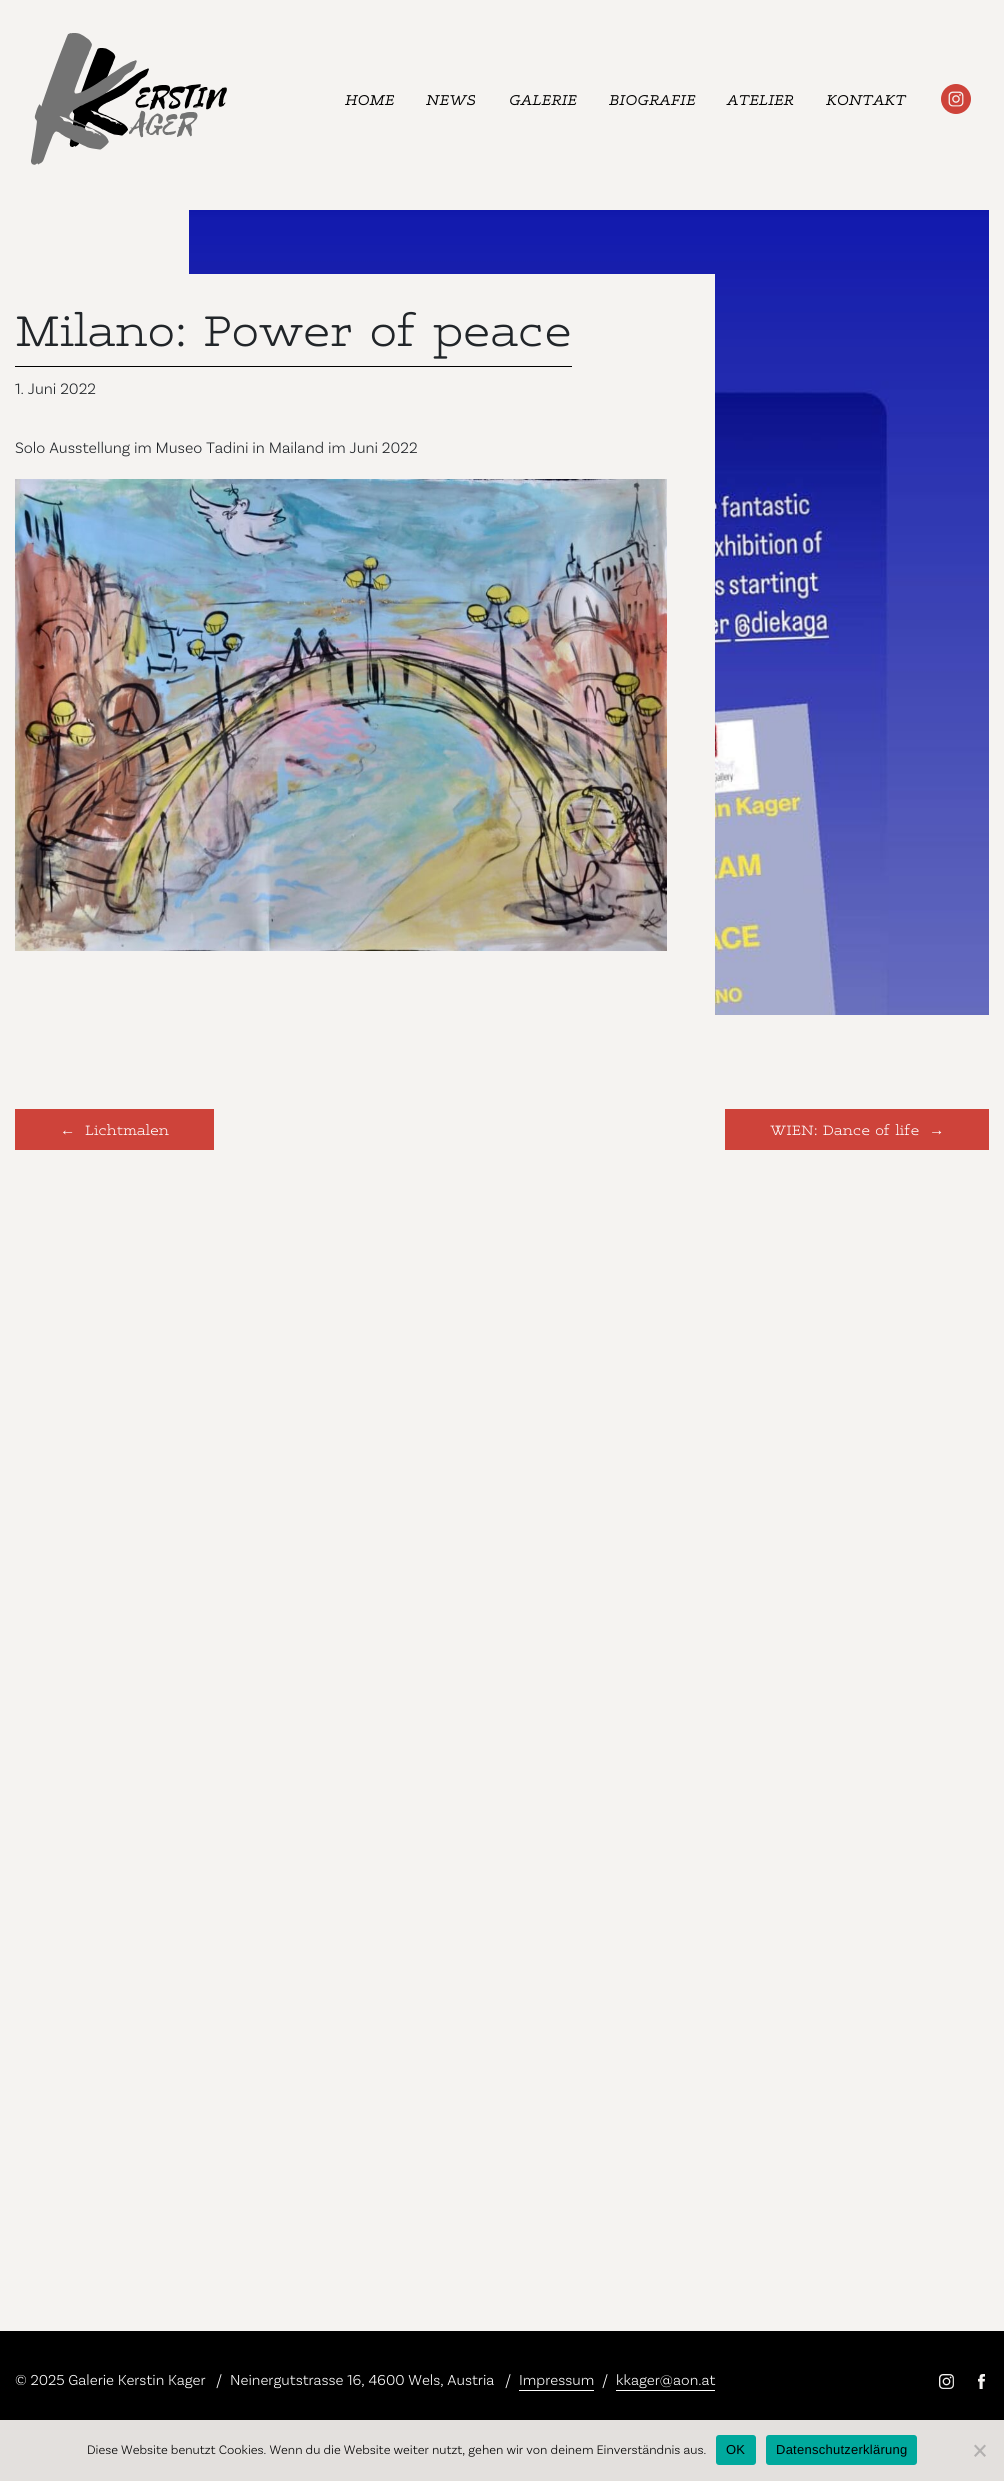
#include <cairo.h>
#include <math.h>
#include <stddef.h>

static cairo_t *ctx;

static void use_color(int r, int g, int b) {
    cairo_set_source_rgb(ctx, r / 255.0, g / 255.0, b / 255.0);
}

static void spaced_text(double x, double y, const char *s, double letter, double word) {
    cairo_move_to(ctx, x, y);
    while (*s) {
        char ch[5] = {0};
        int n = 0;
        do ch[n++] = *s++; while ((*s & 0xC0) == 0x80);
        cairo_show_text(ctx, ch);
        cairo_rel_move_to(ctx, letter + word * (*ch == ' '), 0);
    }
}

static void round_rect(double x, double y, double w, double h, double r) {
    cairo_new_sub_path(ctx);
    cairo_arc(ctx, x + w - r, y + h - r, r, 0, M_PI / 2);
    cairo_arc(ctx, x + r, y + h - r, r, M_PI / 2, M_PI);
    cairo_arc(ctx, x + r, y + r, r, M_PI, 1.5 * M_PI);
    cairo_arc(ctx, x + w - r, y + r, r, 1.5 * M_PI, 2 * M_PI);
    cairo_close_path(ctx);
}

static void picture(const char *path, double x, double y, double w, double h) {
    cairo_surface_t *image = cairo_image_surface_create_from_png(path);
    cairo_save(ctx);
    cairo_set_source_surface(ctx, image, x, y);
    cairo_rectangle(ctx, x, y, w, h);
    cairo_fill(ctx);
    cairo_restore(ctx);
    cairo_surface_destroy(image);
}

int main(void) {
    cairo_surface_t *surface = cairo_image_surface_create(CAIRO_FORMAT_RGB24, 1004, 2481);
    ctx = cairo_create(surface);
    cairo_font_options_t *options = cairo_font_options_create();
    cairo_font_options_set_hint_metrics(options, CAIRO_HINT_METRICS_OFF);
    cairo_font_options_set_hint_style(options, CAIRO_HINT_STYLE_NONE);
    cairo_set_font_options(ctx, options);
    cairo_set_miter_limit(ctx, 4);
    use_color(245, 243, 241);
    cairo_paint(ctx);
    picture("img1.png", 31, 33, 196, 132);
    cairo_select_font_face(ctx, "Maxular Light", CAIRO_FONT_SLANT_ITALIC, CAIRO_FONT_WEIGHT_NORMAL);
    cairo_set_font_size(ctx, 16);
    use_color(0, 0, 0);
    cairo_move_to(ctx, 345, 105);
    cairo_show_text(ctx, "HOME");
    cairo_move_to(ctx, 426, 105);
    cairo_show_text(ctx, "NEWS");
    cairo_move_to(ctx, 509, 105);
    cairo_show_text(ctx, "GALERIE");
    cairo_move_to(ctx, 609, 105);
    cairo_show_text(ctx, "BIOGRAFIE");
    cairo_move_to(ctx, 727, 105);
    cairo_show_text(ctx, "ATELIER");
    cairo_move_to(ctx, 826, 105);
    cairo_show_text(ctx, "KONTAKT");
    picture("img2.png", 941, 84, 30, 30);
    picture("img3.png", 189, 210, 800, 805);
    use_color(245, 243, 241);
    cairo_rectangle(ctx, 189, 274, 526, 741);
    cairo_fill(ctx);
    use_color(0, 0, 0);
    cairo_rectangle(ctx, 15, 366, 557, 1);
    cairo_fill(ctx);
    cairo_select_font_face(ctx, "Maxular ExtraLight", CAIRO_FONT_SLANT_NORMAL, CAIRO_FONT_WEIGHT_NORMAL);
    cairo_set_font_size(ctx, 48);
    use_color(33, 37, 41);
    cairo_move_to(ctx, 15, 346);
    cairo_show_text(ctx, "Milano: Power of peace");
    cairo_select_font_face(ctx, "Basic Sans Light", CAIRO_FONT_SLANT_NORMAL, CAIRO_FONT_WEIGHT_NORMAL);
    cairo_set_font_size(ctx, 16);
    cairo_move_to(ctx, 15, 394);
    cairo_show_text(ctx, "1. Juni 2022");
    cairo_move_to(ctx, 15, 453);
    cairo_show_text(ctx, "Solo Ausstellung im Museo Tadini in Mailand im Juni 2022");
    picture("img4.png", 15, 479, 652, 472);
    use_color(206, 67, 58);
    cairo_rectangle(ctx, 15, 1109, 199, 41);
    cairo_fill(ctx);
    cairo_select_font_face(ctx, "Liberation Serif", CAIRO_FONT_SLANT_NORMAL, CAIRO_FONT_WEIGHT_NORMAL);
    cairo_set_font_size(ctx, 15.25);
    use_color(255, 255, 255);
    cairo_move_to(ctx, 60, 1135);
    cairo_show_text(ctx, "←");
    cairo_select_font_face(ctx, "Maxular ExtraLight", CAIRO_FONT_SLANT_NORMAL, CAIRO_FONT_WEIGHT_NORMAL);
    cairo_move_to(ctx, 85, 1135);
    cairo_show_text(ctx, "Lichtmalen");
    use_color(206, 67, 58);
    cairo_rectangle(ctx, 725, 1109, 264, 41);
    cairo_fill(ctx);
    use_color(255, 255, 255);
    cairo_move_to(ctx, 770, 1135);
    cairo_show_text(ctx, "WIEN: Dance of life");
    cairo_select_font_face(ctx, "Liberation Serif", CAIRO_FONT_SLANT_NORMAL, CAIRO_FONT_WEIGHT_NORMAL);
    cairo_move_to(ctx, 929, 1135);
    cairo_show_text(ctx, "→");
    use_color(0, 0, 0);
    cairo_rectangle(ctx, 0, 2331, 1004, 89);
    cairo_fill(ctx);
    cairo_select_font_face(ctx, "Basic Sans Light", CAIRO_FONT_SLANT_NORMAL, CAIRO_FONT_WEIGHT_NORMAL);
    use_color(255, 255, 255);
    cairo_move_to(ctx, 15, 2385);
    cairo_show_text(ctx, "© 2025 Galerie Kerstin Kager");
    cairo_move_to(ctx, 216, 2385);
    cairo_show_text(ctx, "/");
    cairo_move_to(ctx, 230, 2385);
    cairo_show_text(ctx, "Neinergutstrasse 16, 4600 Wels, Austria");
    cairo_move_to(ctx, 505, 2385);
    cairo_show_text(ctx, "/");
    cairo_move_to(ctx, 519, 2385);
    cairo_show_text(ctx, "Impressum");
    cairo_rectangle(ctx, 519, 2390, 75, 1);
    cairo_fill(ctx);
    cairo_move_to(ctx, 602, 2385);
    cairo_show_text(ctx, "/");
    cairo_move_to(ctx, 616, 2385);
    cairo_show_text(ctx, "kkager@aon.at");
    cairo_rectangle(ctx, 616, 2390, 99, 1);
    cairo_fill(ctx);
    picture("img5.png", 939, 2374, 15, 15);
    picture("img6.png", 978, 2374, 7, 15);
    use_color(227, 224, 221);
    cairo_rectangle(ctx, 0, 2420, 1004, 61);
    cairo_fill(ctx);
    cairo_set_font_size(ctx, 13);
    use_color(0, 0, 0);
    cairo_move_to(ctx, 87, 2454);
    cairo_show_text(ctx, "Diese Website benutzt Cookies. Wenn du die Website weiter nutzt, gehen wir von deinem Einverständnis aus.");
    use_color(0, 169, 157);
    round_rect(716, 2435, 40, 30, 3);
    cairo_fill(ctx);
    cairo_select_font_face(ctx, "Liberation Sans", CAIRO_FONT_SLANT_NORMAL, CAIRO_FONT_WEIGHT_NORMAL);
    use_color(0, 0, 0);
    spaced_text(726, 2454, "OK", 0.25, 0);
    use_color(0, 169, 157);
    round_rect(766, 2435, 151, 30, 3);
    cairo_fill(ctx);
    use_color(0, 0, 0);
    spaced_text(776, 2454, "Datenschutzerklärung", 0.25, 0);
    use_color(178, 176, 175);
    cairo_new_path(ctx);
    cairo_move_to(ctx, 984.5, 2444.5);
    cairo_line_to(ctx, 986, 2446);
    cairo_line_to(ctx, 975.5, 2457);
    cairo_line_to(ctx, 974, 2455.5);
    cairo_close_path(ctx);
    cairo_fill(ctx);
    cairo_new_path(ctx);
    cairo_move_to(ctx, 974, 2446);
    cairo_line_to(ctx, 975.5, 2444.5);
    cairo_line_to(ctx, 986, 2455.5);
    cairo_line_to(ctx, 984.5, 2457);
    cairo_close_path(ctx);
    cairo_fill(ctx);
    cairo_surface_write_to_png(surface, "result.png");
    cairo_font_options_destroy(options);
    cairo_destroy(ctx);
    cairo_surface_destroy(surface);
    return 0;
}
